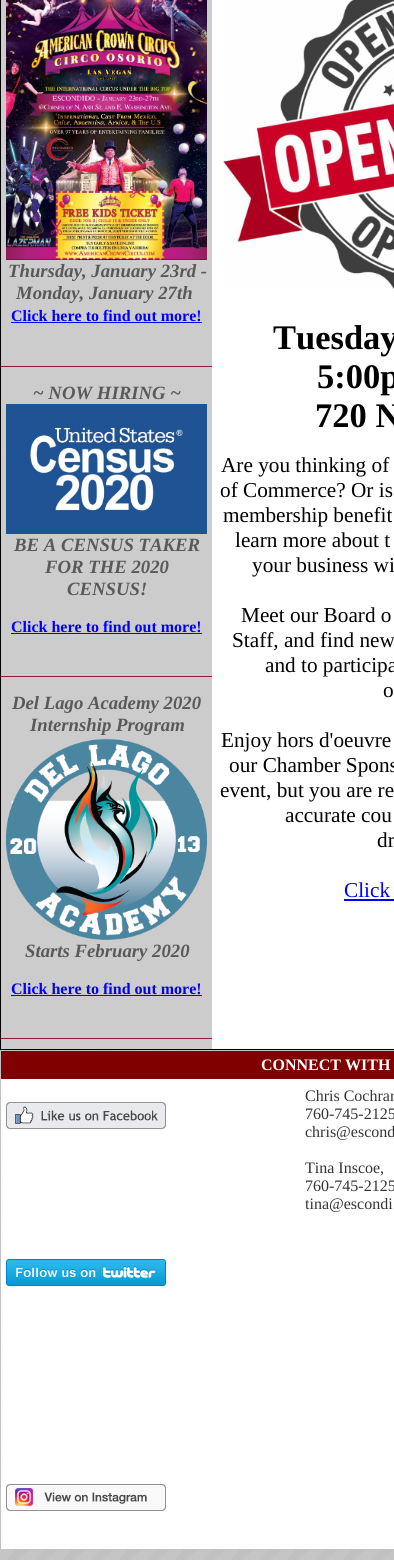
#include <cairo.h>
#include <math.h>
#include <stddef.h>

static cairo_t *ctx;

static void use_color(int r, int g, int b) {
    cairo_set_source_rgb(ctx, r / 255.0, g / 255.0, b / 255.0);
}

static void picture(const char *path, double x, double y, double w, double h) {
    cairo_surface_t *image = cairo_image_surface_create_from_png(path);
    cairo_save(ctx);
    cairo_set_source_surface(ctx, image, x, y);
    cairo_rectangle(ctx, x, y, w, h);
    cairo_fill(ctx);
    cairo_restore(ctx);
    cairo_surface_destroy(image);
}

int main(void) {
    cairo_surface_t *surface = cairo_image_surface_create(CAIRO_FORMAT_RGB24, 394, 1560);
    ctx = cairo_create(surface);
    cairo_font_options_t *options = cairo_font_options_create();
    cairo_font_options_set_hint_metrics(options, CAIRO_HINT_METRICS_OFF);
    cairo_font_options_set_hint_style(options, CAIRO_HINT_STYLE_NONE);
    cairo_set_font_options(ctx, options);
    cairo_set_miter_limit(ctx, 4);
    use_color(255, 255, 255);
    cairo_paint(ctx);
    picture("img1.png", 0, 1050, 394, 510);
    use_color(0, 0, 0);
    cairo_rectangle(ctx, 0, 0, 394, 1050);
    cairo_fill(ctx);
    use_color(204, 204, 204);
    cairo_rectangle(ctx, 1, 0, 211, 1049);
    cairo_fill(ctx);
    picture("img2.png", 6, 0, 201, 260);
    cairo_select_font_face(ctx, "Liberation Serif", CAIRO_FONT_SLANT_ITALIC, CAIRO_FONT_WEIGHT_BOLD);
    cairo_set_font_size(ctx, 18.75);
    use_color(89, 89, 89);
    cairo_move_to(ctx, 8, 277);
    cairo_show_text(ctx, "Thursday, January 23rd -");
    cairo_move_to(ctx, 16, 299);
    cairo_show_text(ctx, "Monday, January 27th");
    cairo_select_font_face(ctx, "Liberation Serif", CAIRO_FONT_SLANT_NORMAL, CAIRO_FONT_WEIGHT_BOLD);
    cairo_set_font_size(ctx, 16);
    use_color(0, 0, 255);
    cairo_move_to(ctx, 11, 321);
    cairo_show_text(ctx, "Click here to find out more!");
    cairo_rectangle(ctx, 11, 322, 191, 1);
    cairo_fill(ctx);
    use_color(140, 28, 47);
    cairo_rectangle(ctx, 1, 366, 211, 1);
    cairo_fill(ctx);
    cairo_select_font_face(ctx, "Liberation Serif", CAIRO_FONT_SLANT_ITALIC, CAIRO_FONT_WEIGHT_BOLD);
    cairo_set_font_size(ctx, 18.75);
    use_color(89, 89, 89);
    cairo_move_to(ctx, 33, 399);
    cairo_show_text(ctx, "~ NOW HIRING ~");
    picture("img3.png", 6, 404, 201, 130);
    cairo_move_to(ctx, 14, 551);
    cairo_show_text(ctx, "BE A CENSUS TAKER");
    cairo_move_to(ctx, 45, 573);
    cairo_show_text(ctx, "FOR THE 2020");
    cairo_move_to(ctx, 67, 595);
    cairo_show_text(ctx, "CENSUS!");
    cairo_select_font_face(ctx, "Liberation Serif", CAIRO_FONT_SLANT_NORMAL, CAIRO_FONT_WEIGHT_BOLD);
    cairo_set_font_size(ctx, 16);
    use_color(0, 0, 255);
    cairo_move_to(ctx, 11, 632);
    cairo_show_text(ctx, "Click here to find out more!");
    cairo_rectangle(ctx, 11, 633, 191, 1);
    cairo_fill(ctx);
    use_color(140, 28, 47);
    cairo_rectangle(ctx, 1, 676, 211, 1);
    cairo_fill(ctx);
    cairo_select_font_face(ctx, "Liberation Serif", CAIRO_FONT_SLANT_ITALIC, CAIRO_FONT_WEIGHT_BOLD);
    cairo_set_font_size(ctx, 18.75);
    use_color(89, 89, 89);
    cairo_move_to(ctx, 12, 709);
    cairo_show_text(ctx, "Del Lago Academy 2020");
    cairo_move_to(ctx, 30, 731);
    cairo_show_text(ctx, "Internship Program");
    picture("img4.png", 6, 738, 201, 202);
    cairo_move_to(ctx, 25, 957);
    cairo_show_text(ctx, "Starts February 2020");
    cairo_select_font_face(ctx, "Liberation Serif", CAIRO_FONT_SLANT_NORMAL, CAIRO_FONT_WEIGHT_BOLD);
    cairo_set_font_size(ctx, 16);
    use_color(0, 0, 255);
    cairo_move_to(ctx, 11, 994);
    cairo_show_text(ctx, "Click here to find out more!");
    cairo_rectangle(ctx, 11, 995, 191, 1);
    cairo_fill(ctx);
    use_color(140, 28, 47);
    cairo_rectangle(ctx, 1, 1038, 211, 1);
    cairo_fill(ctx);
    use_color(255, 255, 255);
    cairo_rectangle(ctx, 212, 0, 182, 1049);
    cairo_fill(ctx);
    picture("img5.png", 223, 0, 171, 289);
    cairo_set_font_size(ctx, 34.5);
    use_color(0, 0, 0);
    cairo_move_to(ctx, 273, 349);
    cairo_show_text(ctx, "Tuesday");
    cairo_move_to(ctx, 317, 388);
    cairo_show_text(ctx, "5:00p");
    cairo_move_to(ctx, 315, 427);
    cairo_show_text(ctx, "720 N");
    cairo_select_font_face(ctx, "Liberation Serif", CAIRO_FONT_SLANT_NORMAL, CAIRO_FONT_WEIGHT_NORMAL);
    cairo_set_font_size(ctx, 21.25);
    cairo_move_to(ctx, 221, 472);
    cairo_show_text(ctx, "Are you thinking of");
    cairo_move_to(ctx, 220, 497);
    cairo_show_text(ctx, "of Commerce? Or is");
    cairo_move_to(ctx, 223, 522);
    cairo_show_text(ctx, "membership benefit");
    cairo_move_to(ctx, 235, 547);
    cairo_show_text(ctx, "learn more about t");
    cairo_move_to(ctx, 252, 572);
    cairo_show_text(ctx, "your business wi");
    cairo_move_to(ctx, 241, 622);
    cairo_show_text(ctx, "Meet our Board o");
    cairo_move_to(ctx, 232, 647);
    cairo_show_text(ctx, "Staff, and find new");
    cairo_move_to(ctx, 265, 672);
    cairo_show_text(ctx, "and to participa");
    cairo_move_to(ctx, 383, 697);
    cairo_show_text(ctx, "o");
    cairo_move_to(ctx, 221, 747);
    cairo_show_text(ctx, "Enjoy hors d'oeuvre");
    cairo_move_to(ctx, 229, 772);
    cairo_show_text(ctx, "our Chamber Spons");
    cairo_move_to(ctx, 220, 797);
    cairo_show_text(ctx, "event, but you are re");
    cairo_move_to(ctx, 285, 822);
    cairo_show_text(ctx, "accurate cou");
    cairo_move_to(ctx, 377, 847);
    cairo_show_text(ctx, "dr");
    use_color(0, 0, 255);
    cairo_move_to(ctx, 344, 897);
    cairo_show_text(ctx, "Click");
    cairo_rectangle(ctx, 344, 899, 50, 2);
    cairo_fill(ctx);
    use_color(128, 0, 0);
    cairo_rectangle(ctx, 1, 1051, 393, 28);
    cairo_fill(ctx);
    cairo_select_font_face(ctx, "Liberation Serif", CAIRO_FONT_SLANT_NORMAL, CAIRO_FONT_WEIGHT_BOLD);
    cairo_set_font_size(ctx, 16);
    use_color(255, 255, 255);
    cairo_move_to(ctx, 261, 1070);
    cairo_show_text(ctx, "CONNECT WITH");
    cairo_rectangle(ctx, 1, 1079, 393, 470);
    cairo_fill(ctx);
    picture("img6.png", 6, 1102, 160, 27);
    cairo_select_font_face(ctx, "Liberation Serif", CAIRO_FONT_SLANT_NORMAL, CAIRO_FONT_WEIGHT_NORMAL);
    use_color(51, 51, 51);
    cairo_move_to(ctx, 305, 1101);
    cairo_show_text(ctx, "Chris Cochran");
    cairo_move_to(ctx, 305, 1119);
    cairo_show_text(ctx, "760-745-2125");
    cairo_move_to(ctx, 305, 1137);
    cairo_show_text(ctx, "chris@escond");
    cairo_move_to(ctx, 305, 1173);
    cairo_show_text(ctx, "Tina Inscoe,");
    cairo_move_to(ctx, 305, 1191);
    cairo_show_text(ctx, "760-745-2125");
    cairo_move_to(ctx, 305, 1209);
    cairo_show_text(ctx, "tina@escondi");
    picture("img7.png", 6, 1259, 160, 27);
    picture("img8.png", 6, 1484, 160, 27);
    cairo_surface_write_to_png(surface, "result.png");
    cairo_font_options_destroy(options);
    cairo_destroy(ctx);
    cairo_surface_destroy(surface);
    return 0;
}
